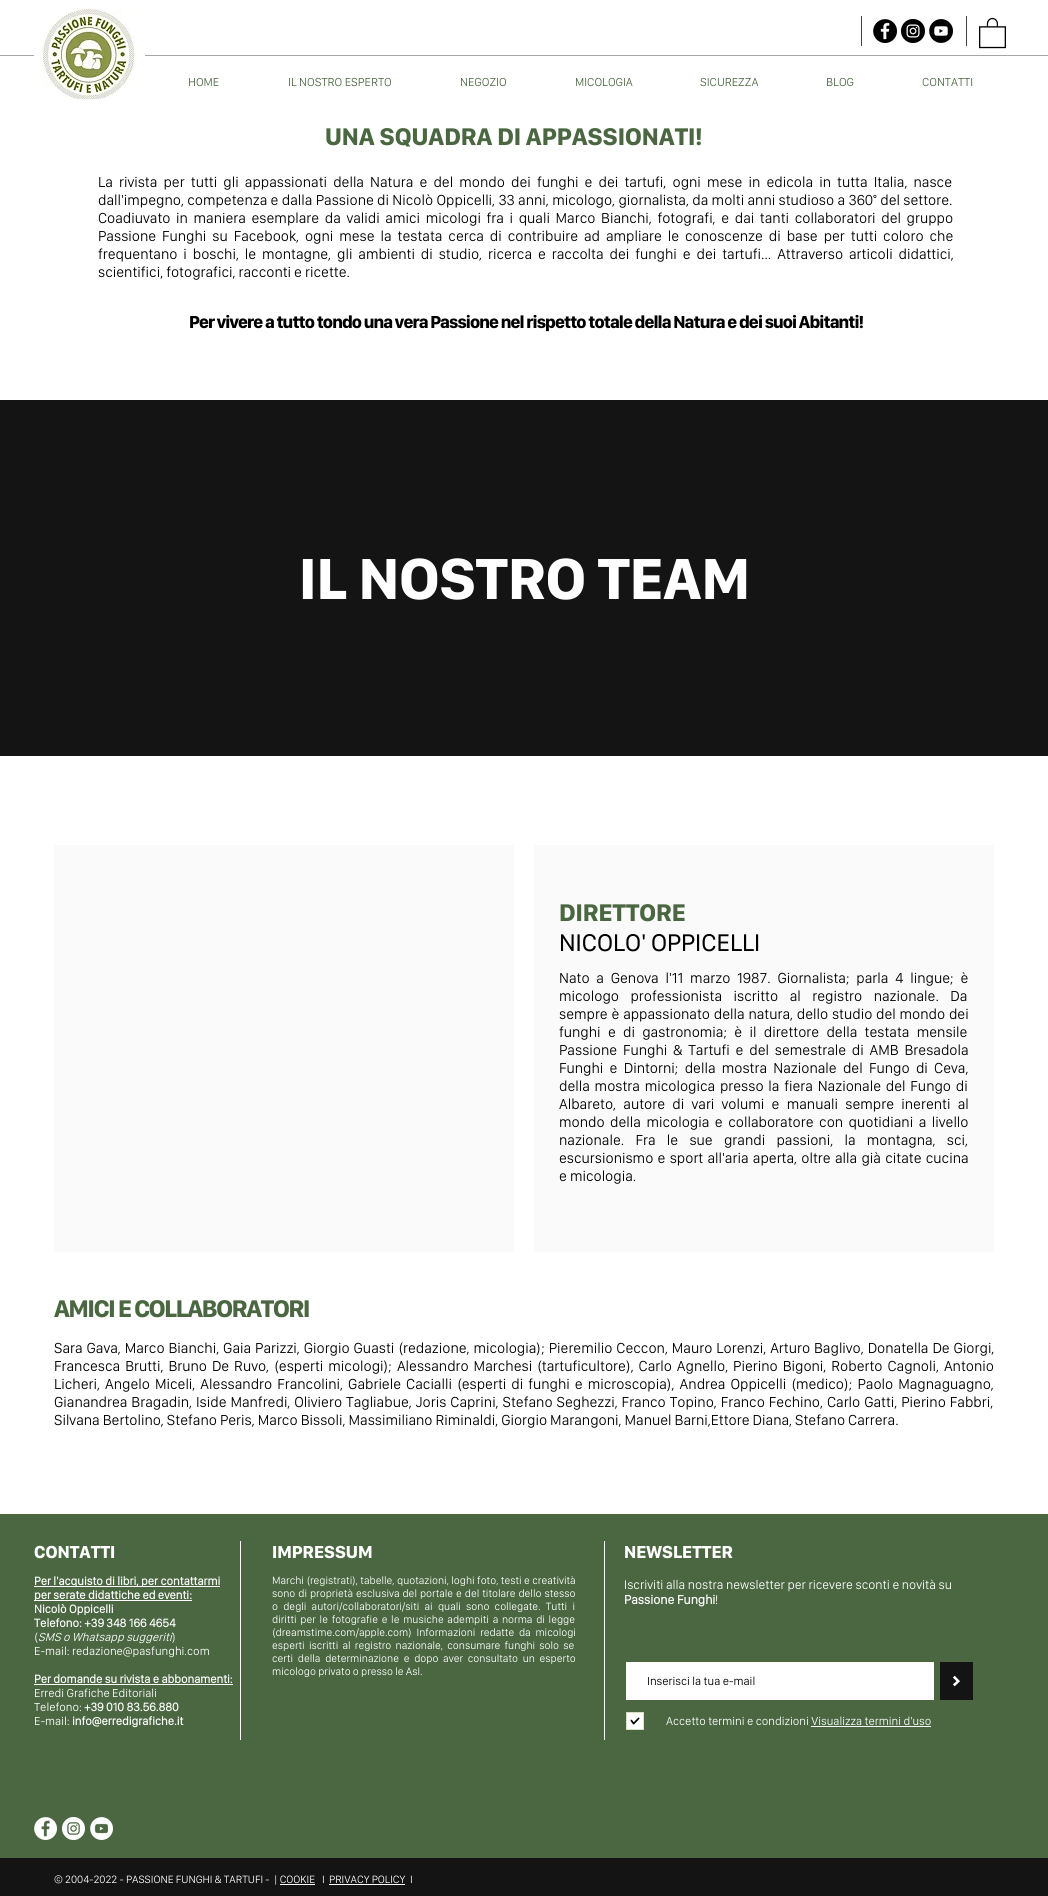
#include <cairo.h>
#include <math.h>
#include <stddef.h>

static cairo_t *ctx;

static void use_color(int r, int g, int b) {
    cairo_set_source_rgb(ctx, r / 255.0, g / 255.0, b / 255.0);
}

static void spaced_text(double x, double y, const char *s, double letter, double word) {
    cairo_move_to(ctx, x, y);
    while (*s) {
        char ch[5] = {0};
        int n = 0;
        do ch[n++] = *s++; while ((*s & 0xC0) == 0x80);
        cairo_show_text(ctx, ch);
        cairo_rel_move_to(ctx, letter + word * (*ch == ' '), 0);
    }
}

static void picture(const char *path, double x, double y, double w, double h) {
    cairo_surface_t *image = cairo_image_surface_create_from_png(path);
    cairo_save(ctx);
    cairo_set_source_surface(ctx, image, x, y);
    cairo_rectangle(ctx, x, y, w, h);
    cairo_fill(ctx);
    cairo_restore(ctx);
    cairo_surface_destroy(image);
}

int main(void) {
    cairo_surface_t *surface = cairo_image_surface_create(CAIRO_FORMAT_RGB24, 1048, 1896);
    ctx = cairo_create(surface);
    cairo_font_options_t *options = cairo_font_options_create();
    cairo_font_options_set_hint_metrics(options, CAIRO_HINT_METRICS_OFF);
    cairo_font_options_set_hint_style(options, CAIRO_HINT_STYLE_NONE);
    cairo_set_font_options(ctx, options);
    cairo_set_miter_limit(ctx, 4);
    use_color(255, 255, 255);
    cairo_paint(ctx);
    use_color(166, 166, 166);
    cairo_rectangle(ctx, 0, 55, 1048, 1);
    cairo_fill(ctx);
    use_color(255, 255, 255);
    cairo_rectangle(ctx, 34, 55, 111, 1);
    cairo_fill(ctx);
    picture("img1.png", 42, 8, 94, 91);
    use_color(66, 66, 66);
    cairo_rectangle(ctx, 861, 16, 1, 30);
    cairo_fill(ctx);
    picture("img2.png", 873, 19, 24, 24);
    picture("img3.png", 901, 19, 24, 24);
    picture("img4.png", 929, 19, 24, 24);
    cairo_rectangle(ctx, 966, 16, 1, 30);
    cairo_fill(ctx);
    picture("img5.png", 979, 17, 27, 32);
    cairo_select_font_face(ctx, "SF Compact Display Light", CAIRO_FONT_SLANT_NORMAL, CAIRO_FONT_WEIGHT_NORMAL);
    cairo_set_font_size(ctx, 12);
    use_color(74, 103, 65);
    cairo_move_to(ctx, 188, 86);
    cairo_show_text(ctx, "HOME");
    cairo_move_to(ctx, 288, 86);
    cairo_show_text(ctx, "IL NOSTRO ESPERTO");
    cairo_move_to(ctx, 460, 86);
    cairo_show_text(ctx, "NEGOZIO");
    cairo_move_to(ctx, 575, 86);
    cairo_show_text(ctx, "MICOLOGIA");
    cairo_move_to(ctx, 700, 86);
    cairo_show_text(ctx, "SICUREZZA");
    cairo_move_to(ctx, 826, 86);
    cairo_show_text(ctx, "BLOG");
    cairo_move_to(ctx, 922, 86);
    cairo_show_text(ctx, "CONTATTI");
    cairo_select_font_face(ctx, "SF Compact Display", CAIRO_FONT_SLANT_NORMAL, CAIRO_FONT_WEIGHT_BOLD);
    cairo_set_font_size(ctx, 25);
    cairo_move_to(ctx, 325, 145);
    cairo_show_text(ctx, "UNA SQUADRA DI APPASSIONATI!");
    cairo_select_font_face(ctx, "SF Compact Display Light", CAIRO_FONT_SLANT_NORMAL, CAIRO_FONT_WEIGHT_NORMAL);
    cairo_set_font_size(ctx, 15);
    use_color(0, 0, 0);
    spaced_text(98, 187, "La rivista per tutti gli appassionati della Natura e del mondo dei funghi e dei tartufi, ogni mese in edicola in tutta Italia, nasce", 0, 3.1);
    spaced_text(98, 205, "dall'impegno, competenza e dalla Passione di Nicolò Oppicelli, 33 anni, micologo, giornalista, da molti anni studioso a 360° del settore.", 0, 0.3);
    spaced_text(98, 223, "Coadiuvato in maniera esemplare da validi amici micologi fra i quali Marco Bianchi, fotografi, e dai tanti collaboratori del gruppo", 0, 2.6);
    spaced_text(98, 241, "Passione Funghi su Facebook, ogni mese la testata cerca di contribuire ad ampliare le conoscenze di base per tutti coloro che", 0, 2.9);
    spaced_text(98, 259, "frequentano i boschi, le montagne, gli ambienti di studio, ricerca e raccolta dei funghi e dei tartufi... Attraverso articoli didattici,", 0, 2.9);
    cairo_move_to(ctx, 98, 277);
    cairo_show_text(ctx, "scientifici, fotografici, racconti e ricette.");
    cairo_select_font_face(ctx, "SF Compact Display", CAIRO_FONT_SLANT_NORMAL, CAIRO_FONT_WEIGHT_BOLD);
    cairo_set_font_size(ctx, 18);
    spaced_text(189, 328, "Per vivere a tutto tondo una vera Passione nel rispetto totale della Natura e dei suoi Abitanti!", -0.9, 0);
    use_color(20, 20, 20);
    cairo_rectangle(ctx, 0, 400, 1048, 356);
    cairo_fill(ctx);
    cairo_set_font_size(ctx, 60);
    use_color(255, 255, 255);
    cairo_move_to(ctx, 299, 599);
    cairo_show_text(ctx, "IL NOSTRO TEAM");
    use_color(250, 250, 250);
    cairo_rectangle(ctx, 54, 845, 460, 407);
    cairo_fill(ctx);
    cairo_rectangle(ctx, 534, 845, 460, 407);
    cairo_fill(ctx);
    cairo_set_font_size(ctx, 25);
    use_color(74, 103, 65);
    cairo_move_to(ctx, 559, 921);
    cairo_show_text(ctx, "DIRETTORE");
    cairo_select_font_face(ctx, "SF Compact Display", CAIRO_FONT_SLANT_NORMAL, CAIRO_FONT_WEIGHT_NORMAL);
    use_color(0, 0, 0);
    cairo_move_to(ctx, 559, 951);
    cairo_show_text(ctx, "NICOLO' OPPICELLI");
    cairo_select_font_face(ctx, "SF Compact Display Light", CAIRO_FONT_SLANT_NORMAL, CAIRO_FONT_WEIGHT_NORMAL);
    cairo_set_font_size(ctx, 15);
    spaced_text(559, 983, "Nato a Genova l'11 marzo 1987. Giornalista; parla 4 lingue; è", 0, 3.75);
    spaced_text(559, 1001, "micologo professionista iscritto al registro nazionale. Da", 0, 8.5);
    spaced_text(559, 1019, "sempre è appassionato della natura, dello studio del mondo dei", 0, 0.75);
    spaced_text(559, 1037, "funghi e di gastronomia; è il direttore della testata mensile", 0, 4.25);
    spaced_text(559, 1055, "Passione Funghi & Tartufi e del semestrale di AMB Bresadola", 0, 2.75);
    spaced_text(559, 1073, "Funghi e Dintorni; della mostra Nazionale del Fungo di Ceva,", 0, 3.25);
    spaced_text(559, 1091, "della mostra micologica presso la fiera Nazionale del Fungo di", 0, 1.75);
    spaced_text(559, 1109, "Albareto, autore di vari volumi e manuali sempre inerenti al", 0, 4.25);
    spaced_text(559, 1127, "mondo della micologia e collaboratore con quotidiani a livello", 0, 2.5);
    spaced_text(559, 1145, "nazionale. Fra le sue grandi passioni, la montagna, sci,", 0, 8.25);
    spaced_text(559, 1163, "escursionismo e sport all'aria aperta, oltre alla già citate cucina", 0, 1.25);
    cairo_move_to(ctx, 559, 1181);
    cairo_show_text(ctx, "e micologia.");
    cairo_select_font_face(ctx, "SF Compact Display", CAIRO_FONT_SLANT_NORMAL, CAIRO_FONT_WEIGHT_BOLD);
    cairo_set_font_size(ctx, 25);
    use_color(74, 103, 65);
    spaced_text(54, 1317, "AMICI E COLLABORATORI", -1.25, 0);
    cairo_select_font_face(ctx, "SF Compact Display Light", CAIRO_FONT_SLANT_NORMAL, CAIRO_FONT_WEIGHT_NORMAL);
    cairo_set_font_size(ctx, 15);
    use_color(0, 0, 0);
    spaced_text(54, 1353, "Sara Gava, Marco Bianchi, Gaia Parizzi, Giorgio Guasti (redazione, micologia); Pieremilio Ceccon, Mauro Lorenzi, Arturo Baglivo, Donatella De Giorgi,", 0, 0.9);
    spaced_text(54, 1371, "Francesca Brutti, Bruno De Ruvo, (esperti micologi); Alessandro Marchesi (tartuficultore), Carlo Agnello, Pierino Bigoni, Roberto Cagnoli, Antonio", 0, 1.9);
    spaced_text(54, 1389, "Licheri, Angelo Miceli, Alessandro Francolini, Gabriele Cacialli (esperti di funghi e microscopia), Andrea Oppicelli (medico); Paolo Magnaguagno,", 0, 2);
    spaced_text(54, 1407, "Gianandrea Bragadin, Iside Manfredi, Oliviero Tagliabue, Joris Caprini, Stefano Seghezzi, Franco Topino, Franco Fechino, Carlo Gatti, Pierino Fabbri,", 0, 0.9);
    cairo_move_to(ctx, 54, 1425);
    cairo_show_text(ctx, "Silvana Bertolino, Stefano Peris, Marco Bissoli, Massimiliano Riminaldi, Giorgio Marangoni, Manuel Barni,Ettore Diana, Stefano Carrera.");
    use_color(74, 103, 65);
    cairo_rectangle(ctx, 0, 1514, 1048, 344);
    cairo_fill(ctx);
    cairo_select_font_face(ctx, "SF Compact Display", CAIRO_FONT_SLANT_NORMAL, CAIRO_FONT_WEIGHT_BOLD);
    cairo_set_font_size(ctx, 18);
    use_color(255, 255, 255);
    cairo_move_to(ctx, 34, 1558);
    cairo_show_text(ctx, "CONTATTI");
    cairo_rectangle(ctx, 34, 1586, 186, 1);
    cairo_fill(ctx);
    cairo_select_font_face(ctx, "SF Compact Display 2", CAIRO_FONT_SLANT_NORMAL, CAIRO_FONT_WEIGHT_BOLD);
    cairo_set_font_size(ctx, 12);
    cairo_move_to(ctx, 34, 1585);
    cairo_show_text(ctx, "Per l'acquisto di libri, per contattarmi");
    cairo_rectangle(ctx, 34, 1600, 158, 1);
    cairo_fill(ctx);
    cairo_move_to(ctx, 34, 1599);
    cairo_show_text(ctx, "per serate didattiche ed eventi:");
    cairo_move_to(ctx, 34, 1613);
    cairo_show_text(ctx, "Nicolò Oppicelli");
    cairo_move_to(ctx, 34, 1627);
    cairo_show_text(ctx, "Telefono: +39 348 166 4654");
    cairo_select_font_face(ctx, "SF Compact Display Light", CAIRO_FONT_SLANT_NORMAL, CAIRO_FONT_WEIGHT_NORMAL);
    cairo_move_to(ctx, 34, 1641);
    cairo_show_text(ctx, "(");
    cairo_select_font_face(ctx, "SF Compact Display Light", CAIRO_FONT_SLANT_ITALIC, CAIRO_FONT_WEIGHT_NORMAL);
    cairo_move_to(ctx, 38, 1641);
    cairo_show_text(ctx, "SMS o Whatsapp suggeriti");
    cairo_select_font_face(ctx, "SF Compact Display Light", CAIRO_FONT_SLANT_NORMAL, CAIRO_FONT_WEIGHT_NORMAL);
    cairo_move_to(ctx, 172, 1641);
    cairo_show_text(ctx, ")");
    cairo_move_to(ctx, 34, 1655);
    cairo_show_text(ctx, "E-mail: redazione@pasfunghi.com");
    cairo_select_font_face(ctx, "SF Compact Display 2", CAIRO_FONT_SLANT_NORMAL, CAIRO_FONT_WEIGHT_BOLD);
    cairo_move_to(ctx, 34, 1683);
    cairo_show_text(ctx, "Per domande su rivista e abbonamenti:");
    cairo_rectangle(ctx, 34, 1684, 199, 1);
    cairo_fill(ctx);
    cairo_select_font_face(ctx, "SF Compact Display Light", CAIRO_FONT_SLANT_NORMAL, CAIRO_FONT_WEIGHT_NORMAL);
    cairo_move_to(ctx, 34, 1697);
    cairo_show_text(ctx, "Erredi Grafiche Editoriali");
    cairo_move_to(ctx, 34, 1711);
    cairo_show_text(ctx, "Telefono:");
    cairo_select_font_face(ctx, "SF Compact Display 2", CAIRO_FONT_SLANT_NORMAL, CAIRO_FONT_WEIGHT_BOLD);
    cairo_move_to(ctx, 84, 1711);
    cairo_show_text(ctx, "+39 010 83.56.880");
    cairo_select_font_face(ctx, "SF Compact Display Light", CAIRO_FONT_SLANT_NORMAL, CAIRO_FONT_WEIGHT_NORMAL);
    cairo_move_to(ctx, 34, 1725);
    cairo_show_text(ctx, "E-mail:");
    cairo_select_font_face(ctx, "SF Compact Display 2", CAIRO_FONT_SLANT_NORMAL, CAIRO_FONT_WEIGHT_BOLD);
    cairo_move_to(ctx, 72, 1725);
    cairo_show_text(ctx, "info@erredigrafiche.it");
    cairo_rectangle(ctx, 240, 1541, 1, 199);
    cairo_fill(ctx);
    cairo_select_font_face(ctx, "SF Compact Display", CAIRO_FONT_SLANT_NORMAL, CAIRO_FONT_WEIGHT_BOLD);
    cairo_set_font_size(ctx, 18);
    cairo_move_to(ctx, 272, 1558);
    cairo_show_text(ctx, "IMPRESSUM");
    cairo_select_font_face(ctx, "SF Compact Display Light", CAIRO_FONT_SLANT_NORMAL, CAIRO_FONT_WEIGHT_NORMAL);
    cairo_set_font_size(ctx, 11);
    spaced_text(272, 1584, "Marchi (registrati), tabelle, quotazioni, loghi foto, testi e creatività", 0, 0.25);
    spaced_text(272, 1597, "sono di proprietà esclusiva del portale e del titolare dello stesso", 0, 0.75);
    spaced_text(272, 1610, "o degli autori/collaboratori/siti ai quali sono collegate. Tutti i", 0, 3);
    spaced_text(272, 1623, "diritti per le fotografie e le musiche adempiti a norma di legge", 0, 1.5);
    spaced_text(272, 1636, "(dreamstime.com/apple.com) Informazioni redatte da micologi", 0, 2.5);
    spaced_text(272, 1649, "esperti iscritti al registro nazionale, consumare funghi solo se", 0, 2);
    spaced_text(272, 1662, "certi della determinazione e dopo aver consultato un esperto", 0, 2.5);
    cairo_move_to(ctx, 272, 1675);
    cairo_show_text(ctx, "micologo privato o presso le Asl.");
    cairo_rectangle(ctx, 604, 1541, 1, 199);
    cairo_fill(ctx);
    cairo_select_font_face(ctx, "SF Compact Display", CAIRO_FONT_SLANT_NORMAL, CAIRO_FONT_WEIGHT_BOLD);
    cairo_set_font_size(ctx, 18);
    cairo_move_to(ctx, 624, 1558);
    cairo_show_text(ctx, "NEWSLETTER");
    cairo_select_font_face(ctx, "SF Compact Display Light", CAIRO_FONT_SLANT_NORMAL, CAIRO_FONT_WEIGHT_NORMAL);
    cairo_set_font_size(ctx, 13);
    cairo_move_to(ctx, 624, 1589);
    cairo_show_text(ctx, "Iscriviti alla nostra newsletter per ricevere sconti e novità su");
    cairo_select_font_face(ctx, "SF Compact Display 2", CAIRO_FONT_SLANT_NORMAL, CAIRO_FONT_WEIGHT_BOLD);
    cairo_move_to(ctx, 624, 1604);
    cairo_show_text(ctx, "Passione Funghi");
    cairo_select_font_face(ctx, "SF Compact Display Light", CAIRO_FONT_SLANT_NORMAL, CAIRO_FONT_WEIGHT_NORMAL);
    cairo_move_to(ctx, 715, 1604);
    cairo_show_text(ctx, "!");
    cairo_rectangle(ctx, 626, 1662, 308, 38);
    cairo_fill(ctx);
    cairo_set_font_size(ctx, 12);
    use_color(0, 0, 0);
    cairo_move_to(ctx, 647, 1685);
    cairo_show_text(ctx, "Inserisci la tua e-mail");
    use_color(20, 20, 20);
    cairo_rectangle(ctx, 940, 1662, 33, 38);
    cairo_fill(ctx);
    cairo_select_font_face(ctx, "Righteous", CAIRO_FONT_SLANT_NORMAL, CAIRO_FONT_WEIGHT_NORMAL);
    cairo_set_font_size(ctx, 18);
    use_color(255, 255, 255);
    cairo_move_to(ctx, 952, 1688);
    cairo_show_text(ctx, ">");
    cairo_rectangle(ctx, 626.5, 1712.5, 17, 17);
    cairo_fill_preserve(ctx);
    use_color(217, 223, 197);
    cairo_set_line_width(ctx, 1);
    cairo_stroke(ctx);
    cairo_select_font_face(ctx, "SF Compact Display Light", CAIRO_FONT_SLANT_NORMAL, CAIRO_FONT_WEIGHT_NORMAL);
    cairo_set_font_size(ctx, 12);
    use_color(255, 255, 255);
    cairo_move_to(ctx, 666, 1725);
    cairo_show_text(ctx, "Accetto termini e condizioni Visualizza termini d'uso");
    cairo_rectangle(ctx, 811, 1726, 120, 1);
    cairo_fill(ctx);
    picture("img6.png", 630, 1717, 10, 8);
    picture("img7.png", 34, 1817, 23, 23);
    picture("img8.png", 62, 1817, 23, 23);
    picture("img9.png", 90, 1817, 23, 23);
    use_color(20, 20, 20);
    cairo_rectangle(ctx, 0, 1858, 1048, 38);
    cairo_fill(ctx);
    cairo_set_font_size(ctx, 11);
    use_color(255, 255, 255);
    cairo_move_to(ctx, 54, 1883);
    cairo_show_text(ctx, "© 2004-2022 - PASSIONE FUNGHI & TARTUFI -  | COOKIE");
    cairo_rectangle(ctx, 280, 1884, 35, 1);
    cairo_fill(ctx);
    cairo_move_to(ctx, 322, 1883);
    cairo_show_text(ctx, "I");
    cairo_move_to(ctx, 329, 1883);
    cairo_show_text(ctx, "PRIVACY POLICY");
    cairo_rectangle(ctx, 329, 1884, 76, 1);
    cairo_fill(ctx);
    cairo_move_to(ctx, 410, 1883);
    cairo_show_text(ctx, "I");
    cairo_surface_write_to_png(surface, "result.png");
    cairo_font_options_destroy(options);
    cairo_destroy(ctx);
    cairo_surface_destroy(surface);
    return 0;
}
